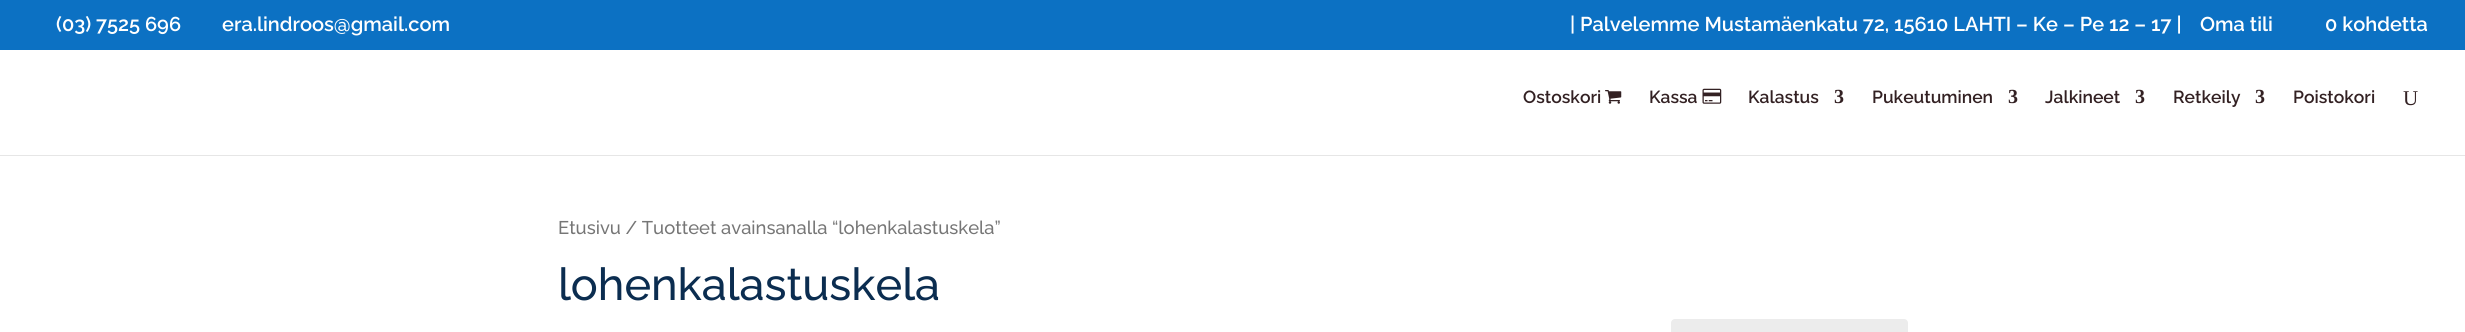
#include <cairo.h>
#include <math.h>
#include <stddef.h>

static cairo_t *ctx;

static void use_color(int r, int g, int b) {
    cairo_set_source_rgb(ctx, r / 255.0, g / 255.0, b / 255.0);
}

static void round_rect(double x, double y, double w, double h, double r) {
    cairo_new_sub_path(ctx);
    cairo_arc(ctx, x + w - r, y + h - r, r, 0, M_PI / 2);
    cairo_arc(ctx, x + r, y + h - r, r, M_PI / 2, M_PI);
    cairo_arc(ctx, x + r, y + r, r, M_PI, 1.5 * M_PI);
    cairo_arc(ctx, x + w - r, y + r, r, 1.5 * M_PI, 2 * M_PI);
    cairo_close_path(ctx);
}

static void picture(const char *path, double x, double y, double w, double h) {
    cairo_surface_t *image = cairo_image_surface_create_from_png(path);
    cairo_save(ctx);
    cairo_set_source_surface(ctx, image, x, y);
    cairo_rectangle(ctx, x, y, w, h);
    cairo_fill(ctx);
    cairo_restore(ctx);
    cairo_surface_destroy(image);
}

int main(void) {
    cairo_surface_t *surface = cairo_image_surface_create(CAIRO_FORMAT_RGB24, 2465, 332);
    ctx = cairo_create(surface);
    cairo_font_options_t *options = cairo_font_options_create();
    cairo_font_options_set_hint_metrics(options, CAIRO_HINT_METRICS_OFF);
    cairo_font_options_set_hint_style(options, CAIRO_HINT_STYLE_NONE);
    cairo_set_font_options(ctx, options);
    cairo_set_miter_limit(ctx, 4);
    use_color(255, 255, 255);
    cairo_paint(ctx);
    use_color(12, 113, 195);
    cairo_rectangle(ctx, 0, 0, 2465, 50);
    cairo_fill(ctx);
    cairo_select_font_face(ctx, "Raleway SemiBold", CAIRO_FONT_SLANT_NORMAL, CAIRO_FONT_WEIGHT_NORMAL);
    cairo_set_font_size(ctx, 20);
    use_color(255, 255, 255);
    cairo_move_to(ctx, 56, 31);
    cairo_show_text(ctx, "(03) 7525 696");
    cairo_move_to(ctx, 222, 31);
    cairo_show_text(ctx, "era.lindroos@gmail.com");
    cairo_move_to(ctx, 1570, 31);
    cairo_show_text(ctx, "| Palvelemme Mustamäenkatu 72, 15610 LAHTI – Ke – Pe 12 – 17 |");
    cairo_move_to(ctx, 2200, 31);
    cairo_show_text(ctx, "Oma tili");
    cairo_move_to(ctx, 2325, 31);
    cairo_show_text(ctx, "0 kohdetta");
    use_color(230, 230, 230);
    cairo_rectangle(ctx, 0, 155, 2465, 1);
    cairo_fill(ctx);
    cairo_set_font_size(ctx, 17.5);
    use_color(51, 33, 35);
    cairo_move_to(ctx, 1523, 103);
    cairo_show_text(ctx, "Ostoskori");
    picture("img1.png", 1605, 90, 17, 14);
    cairo_move_to(ctx, 1649, 103);
    cairo_show_text(ctx, "Kassa");
    picture("img2.png", 1702, 88, 20, 16);
    cairo_move_to(ctx, 1748, 103);
    cairo_show_text(ctx, "Kalastus");
    cairo_select_font_face(ctx, "Liberation Serif", CAIRO_FONT_SLANT_NORMAL, CAIRO_FONT_WEIGHT_BOLD);
    cairo_set_font_size(ctx, 20);
    cairo_move_to(ctx, 1834, 103);
    cairo_show_text(ctx, "3");
    cairo_select_font_face(ctx, "Raleway SemiBold", CAIRO_FONT_SLANT_NORMAL, CAIRO_FONT_WEIGHT_NORMAL);
    cairo_set_font_size(ctx, 17.5);
    cairo_move_to(ctx, 1872, 103);
    cairo_show_text(ctx, "Pukeutuminen");
    cairo_select_font_face(ctx, "Liberation Serif", CAIRO_FONT_SLANT_NORMAL, CAIRO_FONT_WEIGHT_BOLD);
    cairo_set_font_size(ctx, 20);
    cairo_move_to(ctx, 2008, 103);
    cairo_show_text(ctx, "3");
    cairo_select_font_face(ctx, "Raleway SemiBold", CAIRO_FONT_SLANT_NORMAL, CAIRO_FONT_WEIGHT_NORMAL);
    cairo_set_font_size(ctx, 17.5);
    cairo_move_to(ctx, 2045, 103);
    cairo_show_text(ctx, "Jalkineet");
    cairo_select_font_face(ctx, "Liberation Serif", CAIRO_FONT_SLANT_NORMAL, CAIRO_FONT_WEIGHT_BOLD);
    cairo_set_font_size(ctx, 20);
    cairo_move_to(ctx, 2135, 103);
    cairo_show_text(ctx, "3");
    cairo_select_font_face(ctx, "Raleway SemiBold", CAIRO_FONT_SLANT_NORMAL, CAIRO_FONT_WEIGHT_NORMAL);
    cairo_set_font_size(ctx, 17.5);
    cairo_move_to(ctx, 2173, 103);
    cairo_show_text(ctx, "Retkeily");
    cairo_select_font_face(ctx, "Liberation Serif", CAIRO_FONT_SLANT_NORMAL, CAIRO_FONT_WEIGHT_BOLD);
    cairo_set_font_size(ctx, 20);
    cairo_move_to(ctx, 2255, 103);
    cairo_show_text(ctx, "3");
    cairo_select_font_face(ctx, "Raleway SemiBold", CAIRO_FONT_SLANT_NORMAL, CAIRO_FONT_WEIGHT_NORMAL);
    cairo_set_font_size(ctx, 17.5);
    cairo_move_to(ctx, 2293, 103);
    cairo_show_text(ctx, "Poistokori");
    cairo_select_font_face(ctx, "Liberation Serif", CAIRO_FONT_SLANT_NORMAL, CAIRO_FONT_WEIGHT_NORMAL);
    cairo_set_font_size(ctx, 21);
    cairo_move_to(ctx, 2403, 105);
    cairo_show_text(ctx, "U");
    cairo_select_font_face(ctx, "Raleway Medium", CAIRO_FONT_SLANT_NORMAL, CAIRO_FONT_WEIGHT_NORMAL);
    cairo_set_font_size(ctx, 18.4);
    use_color(118, 118, 118);
    cairo_move_to(ctx, 558, 234);
    cairo_show_text(ctx, "Etusivu / Tuotteet avainsanalla “lohenkalastuskela”");
    cairo_set_font_size(ctx, 45);
    use_color(11, 45, 80);
    cairo_move_to(ctx, 558, 300);
    cairo_show_text(ctx, "lohenkalastuskela");
    use_color(236, 236, 236);
    round_rect(1671, 319, 237, 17, 4);
    cairo_fill(ctx);
    cairo_surface_write_to_png(surface, "result.png");
    cairo_font_options_destroy(options);
    cairo_destroy(ctx);
    cairo_surface_destroy(surface);
    return 0;
}
